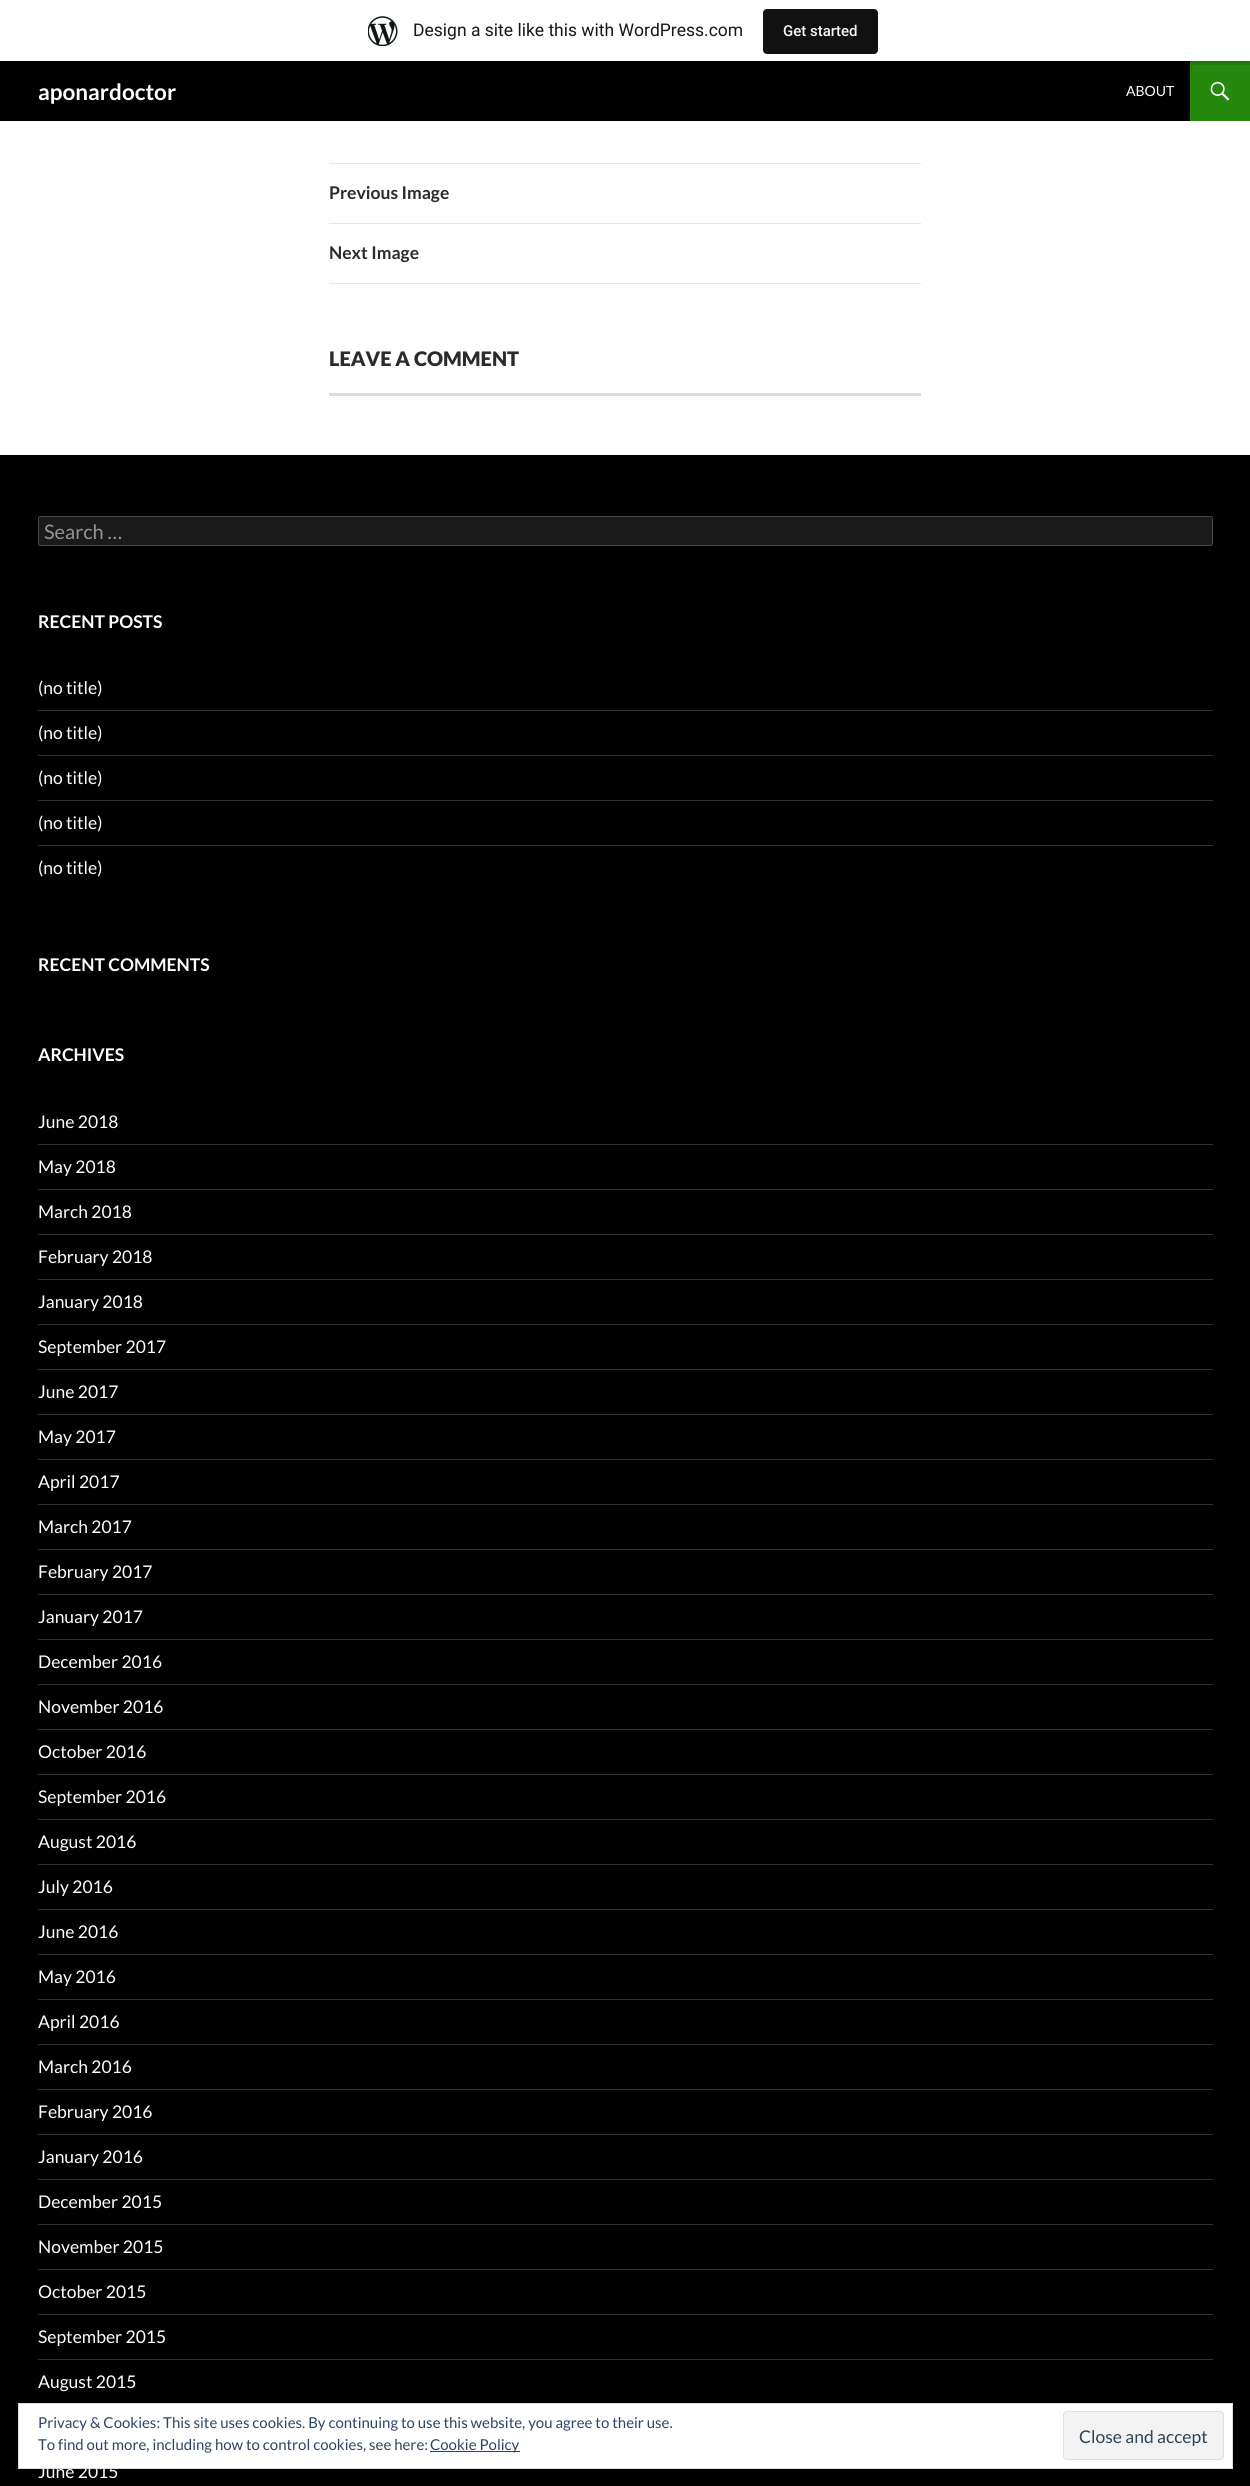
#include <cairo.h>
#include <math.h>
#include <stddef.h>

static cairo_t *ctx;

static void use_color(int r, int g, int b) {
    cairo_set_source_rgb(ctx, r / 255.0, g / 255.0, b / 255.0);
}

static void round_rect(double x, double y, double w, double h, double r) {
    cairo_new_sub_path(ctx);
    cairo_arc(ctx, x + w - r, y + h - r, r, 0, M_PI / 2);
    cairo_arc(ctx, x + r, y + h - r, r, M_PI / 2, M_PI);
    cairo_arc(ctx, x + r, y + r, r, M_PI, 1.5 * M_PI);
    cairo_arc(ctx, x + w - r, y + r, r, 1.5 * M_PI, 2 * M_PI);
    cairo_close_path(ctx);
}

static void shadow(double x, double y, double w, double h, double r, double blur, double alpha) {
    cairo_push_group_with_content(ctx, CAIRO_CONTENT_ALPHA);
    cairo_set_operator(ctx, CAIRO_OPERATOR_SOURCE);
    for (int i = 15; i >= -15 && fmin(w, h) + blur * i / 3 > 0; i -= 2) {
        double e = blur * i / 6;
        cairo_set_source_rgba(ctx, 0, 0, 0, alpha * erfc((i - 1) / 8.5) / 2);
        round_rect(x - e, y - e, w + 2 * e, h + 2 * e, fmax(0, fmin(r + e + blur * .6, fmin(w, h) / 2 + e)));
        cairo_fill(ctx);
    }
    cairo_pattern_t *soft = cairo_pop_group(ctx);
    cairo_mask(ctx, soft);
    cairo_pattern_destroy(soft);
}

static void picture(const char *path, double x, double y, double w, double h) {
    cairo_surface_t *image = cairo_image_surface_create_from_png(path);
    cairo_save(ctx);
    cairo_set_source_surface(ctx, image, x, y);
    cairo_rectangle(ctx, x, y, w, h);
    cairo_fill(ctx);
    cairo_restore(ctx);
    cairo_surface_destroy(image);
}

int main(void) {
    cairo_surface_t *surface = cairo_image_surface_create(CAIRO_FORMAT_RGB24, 1250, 2486);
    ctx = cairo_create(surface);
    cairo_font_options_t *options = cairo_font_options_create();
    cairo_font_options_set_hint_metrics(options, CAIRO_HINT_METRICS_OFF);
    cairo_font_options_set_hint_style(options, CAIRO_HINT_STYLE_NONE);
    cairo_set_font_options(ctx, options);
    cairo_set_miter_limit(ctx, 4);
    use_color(255, 255, 255);
    cairo_paint(ctx);
    use_color(0, 0, 0);
    cairo_rectangle(ctx, 0, 61, 1190, 60);
    cairo_fill(ctx);
    use_color(36, 137, 13);
    cairo_rectangle(ctx, 1190, 61, 60, 60);
    cairo_fill(ctx);
    use_color(0, 0, 0);
    shadow(0, 1, 1250, 62, 0, 1, 0.05);
    cairo_set_source_rgba(ctx, 0, 0, 0, 0.08);
    cairo_new_path(ctx);
    cairo_move_to(ctx, 1, 61);
    cairo_line_to(ctx, 1, 65);
    cairo_line_to(ctx, 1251, 65);
    cairo_line_to(ctx, 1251, 4);
    cairo_line_to(ctx, 1250, 4);
    cairo_line_to(ctx, 1250, 61);
    cairo_close_path(ctx);
    cairo_fill(ctx);
    use_color(255, 255, 255);
    cairo_rectangle(ctx, 0, 0, 1250, 61);
    cairo_fill(ctx);
    picture("img1.png", 368, 16, 30, 30);
    cairo_select_font_face(ctx, "Roboto", CAIRO_FONT_SLANT_NORMAL, CAIRO_FONT_WEIGHT_NORMAL);
    cairo_set_font_size(ctx, 17.5);
    use_color(23, 23, 23);
    cairo_move_to(ctx, 413, 36);
    cairo_show_text(ctx, "Design a site like this with WordPress.com");
    use_color(17, 17, 17);
    round_rect(763, 9, 115, 45, 4);
    cairo_fill(ctx);
    cairo_select_font_face(ctx, "Roboto Medium", CAIRO_FONT_SLANT_NORMAL, CAIRO_FONT_WEIGHT_NORMAL);
    cairo_set_font_size(ctx, 15);
    use_color(246, 247, 247);
    cairo_move_to(ctx, 783, 36);
    cairo_show_text(ctx, "Get started");
    cairo_select_font_face(ctx, "Lato", CAIRO_FONT_SLANT_NORMAL, CAIRO_FONT_WEIGHT_BOLD);
    cairo_set_font_size(ctx, 22.5);
    use_color(255, 255, 255);
    cairo_move_to(ctx, 38, 100);
    cairo_show_text(ctx, "aponardoctor");
    cairo_select_font_face(ctx, "Lato", CAIRO_FONT_SLANT_NORMAL, CAIRO_FONT_WEIGHT_NORMAL);
    cairo_set_font_size(ctx, 14);
    cairo_move_to(ctx, 1126, 96);
    cairo_show_text(ctx, "ABOUT");
    picture("img2.png", 1210, 81, 20, 20);
    use_color(230, 230, 230);
    cairo_rectangle(ctx, 329, 163, 592, 1);
    cairo_fill(ctx);
    cairo_rectangle(ctx, 329, 223, 592, 1);
    cairo_fill(ctx);
    cairo_select_font_face(ctx, "Lato", CAIRO_FONT_SLANT_NORMAL, CAIRO_FONT_WEIGHT_BOLD);
    cairo_set_font_size(ctx, 17.5);
    use_color(43, 43, 43);
    cairo_move_to(ctx, 329, 199);
    cairo_show_text(ctx, "Previous Image");
    use_color(230, 230, 230);
    cairo_rectangle(ctx, 329, 283, 592, 1);
    cairo_fill(ctx);
    use_color(43, 43, 43);
    cairo_move_to(ctx, 329, 259);
    cairo_show_text(ctx, "Next Image");
    cairo_select_font_face(ctx, "Lato Black", CAIRO_FONT_SLANT_NORMAL, CAIRO_FONT_WEIGHT_NORMAL);
    cairo_set_font_size(ctx, 20);
    cairo_move_to(ctx, 329, 366);
    cairo_show_text(ctx, "LEAVE A COMMENT");
    use_color(220, 220, 222);
    cairo_rectangle(ctx, 329, 393, 592, 3);
    cairo_fill(ctx);
    use_color(0, 0, 0);
    cairo_rectangle(ctx, 0, 455, 1250, 2031);
    cairo_fill(ctx);
    use_color(26, 26, 26);
    round_rect(38, 516, 1175, 30, 2.5);
    cairo_fill(ctx);
    round_rect(38.5, 516.5, 1174, 29, 2);
    cairo_set_source_rgba(ctx, 1, 1, 1, 0.2);
    cairo_set_line_width(ctx, 1);
    cairo_stroke(ctx);
    cairo_select_font_face(ctx, "Lato", CAIRO_FONT_SLANT_NORMAL, CAIRO_FONT_WEIGHT_NORMAL);
    use_color(147, 147, 147);
    cairo_move_to(ctx, 44, 539);
    cairo_show_text(ctx, "Search …");
    cairo_select_font_face(ctx, "Lato", CAIRO_FONT_SLANT_NORMAL, CAIRO_FONT_WEIGHT_BOLD);
    cairo_set_font_size(ctx, 17.5);
    use_color(255, 255, 255);
    cairo_move_to(ctx, 38, 628);
    cairo_show_text(ctx, "RECENT POSTS");
    cairo_select_font_face(ctx, "Lato", CAIRO_FONT_SLANT_NORMAL, CAIRO_FONT_WEIGHT_NORMAL);
    cairo_move_to(ctx, 38, 694);
    cairo_show_text(ctx, "(no title)");
    use_color(51, 51, 51);
    cairo_rectangle(ctx, 38, 710, 1175, 1);
    cairo_fill(ctx);
    use_color(255, 255, 255);
    cairo_move_to(ctx, 38, 739);
    cairo_show_text(ctx, "(no title)");
    use_color(51, 51, 51);
    cairo_rectangle(ctx, 38, 755, 1175, 1);
    cairo_fill(ctx);
    use_color(255, 255, 255);
    cairo_move_to(ctx, 38, 784);
    cairo_show_text(ctx, "(no title)");
    use_color(51, 51, 51);
    cairo_rectangle(ctx, 38, 800, 1175, 1);
    cairo_fill(ctx);
    use_color(255, 255, 255);
    cairo_move_to(ctx, 38, 829);
    cairo_show_text(ctx, "(no title)");
    use_color(51, 51, 51);
    cairo_rectangle(ctx, 38, 845, 1175, 1);
    cairo_fill(ctx);
    use_color(255, 255, 255);
    cairo_move_to(ctx, 38, 874);
    cairo_show_text(ctx, "(no title)");
    cairo_select_font_face(ctx, "Lato", CAIRO_FONT_SLANT_NORMAL, CAIRO_FONT_WEIGHT_BOLD);
    cairo_move_to(ctx, 38, 971);
    cairo_show_text(ctx, "RECENT COMMENTS");
    cairo_move_to(ctx, 38, 1061);
    cairo_show_text(ctx, "ARCHIVES");
    cairo_select_font_face(ctx, "Lato", CAIRO_FONT_SLANT_NORMAL, CAIRO_FONT_WEIGHT_NORMAL);
    cairo_move_to(ctx, 38, 1128);
    cairo_show_text(ctx, "June 2018");
    use_color(51, 51, 51);
    cairo_rectangle(ctx, 38, 1144, 1175, 1);
    cairo_fill(ctx);
    use_color(255, 255, 255);
    cairo_move_to(ctx, 38, 1173);
    cairo_show_text(ctx, "May 2018");
    use_color(51, 51, 51);
    cairo_rectangle(ctx, 38, 1189, 1175, 1);
    cairo_fill(ctx);
    use_color(255, 255, 255);
    cairo_move_to(ctx, 38, 1218);
    cairo_show_text(ctx, "March 2018");
    use_color(51, 51, 51);
    cairo_rectangle(ctx, 38, 1234, 1175, 1);
    cairo_fill(ctx);
    use_color(255, 255, 255);
    cairo_move_to(ctx, 38, 1263);
    cairo_show_text(ctx, "February 2018");
    use_color(51, 51, 51);
    cairo_rectangle(ctx, 38, 1279, 1175, 1);
    cairo_fill(ctx);
    use_color(255, 255, 255);
    cairo_move_to(ctx, 38, 1308);
    cairo_show_text(ctx, "January 2018");
    use_color(51, 51, 51);
    cairo_rectangle(ctx, 38, 1324, 1175, 1);
    cairo_fill(ctx);
    use_color(255, 255, 255);
    cairo_move_to(ctx, 38, 1353);
    cairo_show_text(ctx, "September 2017");
    use_color(51, 51, 51);
    cairo_rectangle(ctx, 38, 1369, 1175, 1);
    cairo_fill(ctx);
    use_color(255, 255, 255);
    cairo_move_to(ctx, 38, 1398);
    cairo_show_text(ctx, "June 2017");
    use_color(51, 51, 51);
    cairo_rectangle(ctx, 38, 1414, 1175, 1);
    cairo_fill(ctx);
    use_color(255, 255, 255);
    cairo_move_to(ctx, 38, 1443);
    cairo_show_text(ctx, "May 2017");
    use_color(51, 51, 51);
    cairo_rectangle(ctx, 38, 1459, 1175, 1);
    cairo_fill(ctx);
    use_color(255, 255, 255);
    cairo_move_to(ctx, 38, 1488);
    cairo_show_text(ctx, "April 2017");
    use_color(51, 51, 51);
    cairo_rectangle(ctx, 38, 1504, 1175, 1);
    cairo_fill(ctx);
    use_color(255, 255, 255);
    cairo_move_to(ctx, 38, 1533);
    cairo_show_text(ctx, "March 2017");
    use_color(51, 51, 51);
    cairo_rectangle(ctx, 38, 1549, 1175, 1);
    cairo_fill(ctx);
    use_color(255, 255, 255);
    cairo_move_to(ctx, 38, 1578);
    cairo_show_text(ctx, "February 2017");
    use_color(51, 51, 51);
    cairo_rectangle(ctx, 38, 1594, 1175, 1);
    cairo_fill(ctx);
    use_color(255, 255, 255);
    cairo_move_to(ctx, 38, 1623);
    cairo_show_text(ctx, "January 2017");
    use_color(51, 51, 51);
    cairo_rectangle(ctx, 38, 1639, 1175, 1);
    cairo_fill(ctx);
    use_color(255, 255, 255);
    cairo_move_to(ctx, 38, 1668);
    cairo_show_text(ctx, "December 2016");
    use_color(51, 51, 51);
    cairo_rectangle(ctx, 38, 1684, 1175, 1);
    cairo_fill(ctx);
    use_color(255, 255, 255);
    cairo_move_to(ctx, 38, 1713);
    cairo_show_text(ctx, "November 2016");
    use_color(51, 51, 51);
    cairo_rectangle(ctx, 38, 1729, 1175, 1);
    cairo_fill(ctx);
    use_color(255, 255, 255);
    cairo_move_to(ctx, 38, 1758);
    cairo_show_text(ctx, "October 2016");
    use_color(51, 51, 51);
    cairo_rectangle(ctx, 38, 1774, 1175, 1);
    cairo_fill(ctx);
    use_color(255, 255, 255);
    cairo_move_to(ctx, 38, 1803);
    cairo_show_text(ctx, "September 2016");
    use_color(51, 51, 51);
    cairo_rectangle(ctx, 38, 1819, 1175, 1);
    cairo_fill(ctx);
    use_color(255, 255, 255);
    cairo_move_to(ctx, 38, 1848);
    cairo_show_text(ctx, "August 2016");
    use_color(51, 51, 51);
    cairo_rectangle(ctx, 38, 1864, 1175, 1);
    cairo_fill(ctx);
    use_color(255, 255, 255);
    cairo_move_to(ctx, 38, 1893);
    cairo_show_text(ctx, "July 2016");
    use_color(51, 51, 51);
    cairo_rectangle(ctx, 38, 1909, 1175, 1);
    cairo_fill(ctx);
    use_color(255, 255, 255);
    cairo_move_to(ctx, 38, 1938);
    cairo_show_text(ctx, "June 2016");
    use_color(51, 51, 51);
    cairo_rectangle(ctx, 38, 1954, 1175, 1);
    cairo_fill(ctx);
    use_color(255, 255, 255);
    cairo_move_to(ctx, 38, 1983);
    cairo_show_text(ctx, "May 2016");
    use_color(51, 51, 51);
    cairo_rectangle(ctx, 38, 1999, 1175, 1);
    cairo_fill(ctx);
    use_color(255, 255, 255);
    cairo_move_to(ctx, 38, 2028);
    cairo_show_text(ctx, "April 2016");
    use_color(51, 51, 51);
    cairo_rectangle(ctx, 38, 2044, 1175, 1);
    cairo_fill(ctx);
    use_color(255, 255, 255);
    cairo_move_to(ctx, 38, 2073);
    cairo_show_text(ctx, "March 2016");
    use_color(51, 51, 51);
    cairo_rectangle(ctx, 38, 2089, 1175, 1);
    cairo_fill(ctx);
    use_color(255, 255, 255);
    cairo_move_to(ctx, 38, 2118);
    cairo_show_text(ctx, "February 2016");
    use_color(51, 51, 51);
    cairo_rectangle(ctx, 38, 2134, 1175, 1);
    cairo_fill(ctx);
    use_color(255, 255, 255);
    cairo_move_to(ctx, 38, 2163);
    cairo_show_text(ctx, "January 2016");
    use_color(51, 51, 51);
    cairo_rectangle(ctx, 38, 2179, 1175, 1);
    cairo_fill(ctx);
    use_color(255, 255, 255);
    cairo_move_to(ctx, 38, 2208);
    cairo_show_text(ctx, "December 2015");
    use_color(51, 51, 51);
    cairo_rectangle(ctx, 38, 2224, 1175, 1);
    cairo_fill(ctx);
    use_color(255, 255, 255);
    cairo_move_to(ctx, 38, 2253);
    cairo_show_text(ctx, "November 2015");
    use_color(51, 51, 51);
    cairo_rectangle(ctx, 38, 2269, 1175, 1);
    cairo_fill(ctx);
    use_color(255, 255, 255);
    cairo_move_to(ctx, 38, 2298);
    cairo_show_text(ctx, "October 2015");
    use_color(51, 51, 51);
    cairo_rectangle(ctx, 38, 2314, 1175, 1);
    cairo_fill(ctx);
    use_color(255, 255, 255);
    cairo_move_to(ctx, 38, 2343);
    cairo_show_text(ctx, "September 2015");
    use_color(51, 51, 51);
    cairo_rectangle(ctx, 38, 2359, 1175, 1);
    cairo_fill(ctx);
    use_color(255, 255, 255);
    cairo_move_to(ctx, 38, 2388);
    cairo_show_text(ctx, "August 2015");
    cairo_move_to(ctx, 38, 2478);
    cairo_show_text(ctx, "June 2015");
    cairo_rectangle(ctx, 18.5, 2403.5, 1214, 65);
    cairo_fill_preserve(ctx);
    use_color(222, 222, 222);
    cairo_stroke(ctx);
    cairo_set_font_size(ctx, 15);
    use_color(46, 68, 103);
    cairo_move_to(ctx, 38, 2428);
    cairo_show_text(ctx, "Privacy & Cookies: This site uses cookies. By continuing to use this website, you agree to their use.");
    cairo_move_to(ctx, 38, 2450);
    cairo_show_text(ctx, "To find out more, including how to control cookies, see here:");
    cairo_rectangle(ctx, 430, 2451, 90, 1);
    cairo_fill(ctx);
    cairo_move_to(ctx, 430, 2450);
    cairo_show_text(ctx, "Cookie Policy");
    use_color(243, 243, 243);
    round_rect(1063.5, 2411.5, 160, 48, 3.5);
    cairo_fill_preserve(ctx);
    use_color(222, 222, 222);
    cairo_stroke(ctx);
    cairo_set_font_size(ctx, 17.5);
    use_color(46, 68, 83);
    cairo_move_to(ctx, 1079, 2443);
    cairo_show_text(ctx, "Close and accept");
    cairo_surface_write_to_png(surface, "result.png");
    cairo_font_options_destroy(options);
    cairo_destroy(ctx);
    cairo_surface_destroy(surface);
    return 0;
}
